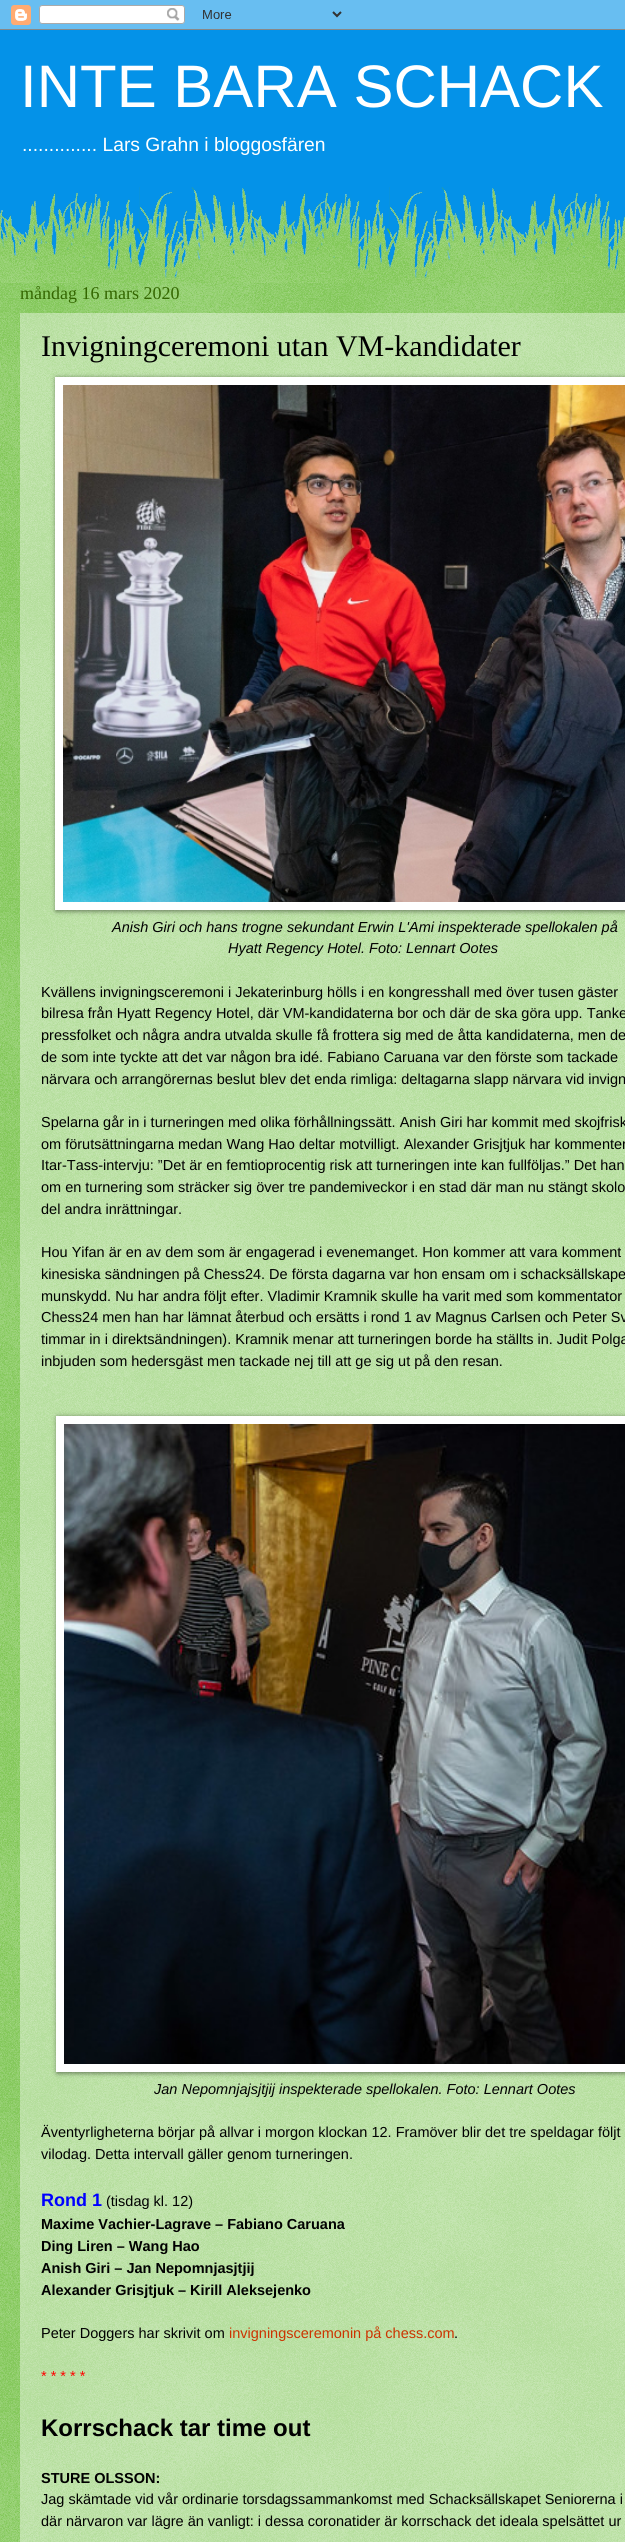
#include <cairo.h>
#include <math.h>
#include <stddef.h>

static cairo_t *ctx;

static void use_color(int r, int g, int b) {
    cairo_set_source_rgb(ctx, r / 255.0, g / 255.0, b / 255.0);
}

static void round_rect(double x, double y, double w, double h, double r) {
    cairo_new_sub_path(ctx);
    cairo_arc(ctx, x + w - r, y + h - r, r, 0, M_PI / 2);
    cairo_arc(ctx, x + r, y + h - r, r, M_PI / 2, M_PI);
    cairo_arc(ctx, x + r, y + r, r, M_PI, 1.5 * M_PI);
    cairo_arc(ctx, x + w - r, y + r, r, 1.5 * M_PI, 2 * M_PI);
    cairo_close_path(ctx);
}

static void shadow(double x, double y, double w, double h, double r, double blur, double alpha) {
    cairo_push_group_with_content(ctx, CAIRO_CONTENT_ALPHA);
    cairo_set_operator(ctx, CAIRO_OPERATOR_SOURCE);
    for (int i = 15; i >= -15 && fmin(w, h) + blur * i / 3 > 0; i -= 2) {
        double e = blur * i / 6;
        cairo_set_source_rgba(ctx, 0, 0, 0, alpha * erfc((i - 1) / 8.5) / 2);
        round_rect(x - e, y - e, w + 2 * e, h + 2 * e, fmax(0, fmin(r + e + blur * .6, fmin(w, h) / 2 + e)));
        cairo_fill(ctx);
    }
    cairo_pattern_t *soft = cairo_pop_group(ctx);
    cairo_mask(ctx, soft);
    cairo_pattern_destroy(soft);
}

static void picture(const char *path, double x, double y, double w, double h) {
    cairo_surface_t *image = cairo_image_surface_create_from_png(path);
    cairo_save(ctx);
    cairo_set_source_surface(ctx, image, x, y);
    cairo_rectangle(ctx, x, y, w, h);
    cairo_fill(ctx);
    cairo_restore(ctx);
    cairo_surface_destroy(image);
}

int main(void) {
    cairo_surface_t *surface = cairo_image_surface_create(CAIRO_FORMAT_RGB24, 625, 2542);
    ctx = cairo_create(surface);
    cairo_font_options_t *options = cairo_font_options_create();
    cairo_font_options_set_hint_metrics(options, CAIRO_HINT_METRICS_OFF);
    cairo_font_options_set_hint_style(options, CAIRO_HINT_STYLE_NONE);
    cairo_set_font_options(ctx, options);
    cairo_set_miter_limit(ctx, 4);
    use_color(4, 146, 232);
    cairo_paint(ctx);
    picture("img1.png", 0, 0, 625, 30);
    cairo_select_font_face(ctx, "Liberation Sans", CAIRO_FONT_SLANT_NORMAL, CAIRO_FONT_WEIGHT_NORMAL);
    cairo_set_font_size(ctx, 60);
    use_color(255, 255, 255);
    cairo_move_to(ctx, 20, 107);
    cairo_show_text(ctx, "INTE BARA SCHACK");
    cairo_set_font_size(ctx, 19.3);
    cairo_move_to(ctx, 22, 151);
    cairo_show_text(ctx, ".............. Lars Grahn i bloggosfären");
    use_color(102, 187, 51);
    cairo_rectangle(ctx, 0, 283, 625, 2259);
    cairo_fill(ctx);
    use_color(163, 214, 133);
    cairo_rectangle(ctx, 20, 313, 605, 2229);
    cairo_fill(ctx);
    picture("img2.png", 0, 283, 625, 2259);
    picture("img3.png", 0, 187, 625, 96);
    cairo_select_font_face(ctx, "Liberation Serif", CAIRO_FONT_SLANT_NORMAL, CAIRO_FONT_WEIGHT_NORMAL);
    cairo_set_font_size(ctx, 18);
    use_color(51, 102, 0);
    cairo_move_to(ctx, 20, 299);
    cairo_show_text(ctx, "måndag 16 mars 2020");
    cairo_set_font_size(ctx, 30);
    use_color(0, 0, 0);
    cairo_move_to(ctx, 41, 356);
    cairo_show_text(ctx, "Invigningceremoni utan VM-kandidater");
    use_color(0, 0, 0);
    shadow(56, 378, 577, 533, 0, 2.5, 0.5);
    use_color(255, 255, 255);
    cairo_rectangle(ctx, 55, 377, 570, 533);
    cairo_fill(ctx);
    picture("img4.png", 63, 385, 562, 517);
    cairo_select_font_face(ctx, "Liberation Sans", CAIRO_FONT_SLANT_ITALIC, CAIRO_FONT_WEIGHT_NORMAL);
    cairo_set_font_size(ctx, 14.5);
    use_color(0, 0, 0);
    cairo_move_to(ctx, 112, 932);
    cairo_show_text(ctx, "Anish Giri och hans trogne sekundant Erwin L'Ami inspekterade spellokalen på");
    cairo_move_to(ctx, 228, 953);
    cairo_show_text(ctx, "Hyatt Regency Hotel. Foto: Lennart Ootes");
    cairo_select_font_face(ctx, "Liberation Sans", CAIRO_FONT_SLANT_NORMAL, CAIRO_FONT_WEIGHT_NORMAL);
    cairo_move_to(ctx, 41, 997);
    cairo_show_text(ctx, "Kvällens invigningsceremoni i Jekaterinburg hölls i en kongresshall med över tusen gäster");
    cairo_move_to(ctx, 41, 1018);
    cairo_show_text(ctx, "bilresa från Hyatt Regency Hotel, där VM-kandidaterna bor och där de ska göra upp. Tanke");
    cairo_move_to(ctx, 41, 1040);
    cairo_show_text(ctx, "pressfolket och några andra utvalda skulle få frottera sig med de åtta kandidaterna, men de");
    cairo_move_to(ctx, 41, 1062);
    cairo_show_text(ctx, "de som inte tyckte att det var någon bra idé. Fabiano Caruana var den förste som tackade");
    cairo_move_to(ctx, 41, 1084);
    cairo_show_text(ctx, "närvara och arrangörernas beslut blev det enda rimliga: deltagarna slapp närvara vid invign");
    cairo_move_to(ctx, 41, 1127);
    cairo_show_text(ctx, "Spelarna går in i turneringen med olika förhållningssätt. Anish Giri har kommit med skojfrisk");
    cairo_move_to(ctx, 41, 1149);
    cairo_show_text(ctx, "om förutsättningarna medan Wang Hao deltar motvilligt. Alexander Grisjtjuk har kommenter");
    cairo_move_to(ctx, 41, 1170);
    cairo_show_text(ctx, "Itar-Tass-intervju: ”Det är en femtioprocentig risk att turneringen inte kan fullföljas.” Det han");
    cairo_move_to(ctx, 41, 1192);
    cairo_show_text(ctx, "om en turnering som sträcker sig över tre pandemiveckor i en stad där man nu stängt skolo");
    cairo_move_to(ctx, 41, 1214);
    cairo_show_text(ctx, "del andra inrättningar.");
    cairo_move_to(ctx, 41, 1257);
    cairo_show_text(ctx, "Hou Yifan är en av dem som är engagerad i evenemanget. Hon kommer att vara komment");
    cairo_move_to(ctx, 41, 1279);
    cairo_show_text(ctx, "kinesiska sändningen på Chess24. De första dagarna var hon ensam om i schacksällskape");
    cairo_move_to(ctx, 41, 1301);
    cairo_show_text(ctx, "munskydd. Nu har andra följt efter. Vladimir Kramnik skulle ha varit med som kommentator");
    cairo_move_to(ctx, 41, 1322);
    cairo_show_text(ctx, "Chess24 men han har lämnat återbud och ersätts i rond 1 av Magnus Carlsen och Peter Sv");
    cairo_move_to(ctx, 41, 1344);
    cairo_show_text(ctx, "timmar in i direktsändningen). Kramnik menar att turneringen borde ha ställts in. Judit Polga");
    cairo_move_to(ctx, 41, 1366);
    cairo_show_text(ctx, "inbjuden som hedersgäst men tackade nej till att ge sig ut på den resan.");
    use_color(0, 0, 0);
    shadow(57, 1417, 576, 656, 0, 2.5, 0.5);
    use_color(255, 255, 255);
    cairo_rectangle(ctx, 56, 1416, 569, 656);
    cairo_fill(ctx);
    picture("img5.png", 64, 1424, 561, 640);
    cairo_select_font_face(ctx, "Liberation Sans", CAIRO_FONT_SLANT_ITALIC, CAIRO_FONT_WEIGHT_NORMAL);
    use_color(0, 0, 0);
    cairo_move_to(ctx, 154, 2094);
    cairo_show_text(ctx, "Jan Nepomnjajsjtjij inspekterade spellokalen. Foto: Lennart Ootes");
    cairo_select_font_face(ctx, "Liberation Sans", CAIRO_FONT_SLANT_NORMAL, CAIRO_FONT_WEIGHT_NORMAL);
    cairo_move_to(ctx, 41, 2137);
    cairo_show_text(ctx, "Äventyrligheterna börjar på allvar i morgon klockan 12. Framöver blir det tre speldagar följt");
    cairo_move_to(ctx, 41, 2159);
    cairo_show_text(ctx, "vilodag. Detta intervall gäller genom turneringen.");
    cairo_select_font_face(ctx, "Liberation Sans", CAIRO_FONT_SLANT_NORMAL, CAIRO_FONT_WEIGHT_BOLD);
    cairo_set_font_size(ctx, 18);
    use_color(0, 0, 255);
    cairo_move_to(ctx, 41, 2206);
    cairo_show_text(ctx, "Rond 1");
    cairo_select_font_face(ctx, "Liberation Sans", CAIRO_FONT_SLANT_NORMAL, CAIRO_FONT_WEIGHT_NORMAL);
    cairo_set_font_size(ctx, 14.5);
    use_color(0, 0, 0);
    cairo_move_to(ctx, 106, 2206);
    cairo_show_text(ctx, "(tisdag kl. 12)");
    cairo_select_font_face(ctx, "Liberation Sans", CAIRO_FONT_SLANT_NORMAL, CAIRO_FONT_WEIGHT_BOLD);
    cairo_move_to(ctx, 41, 2229);
    cairo_show_text(ctx, "Maxime Vachier-Lagrave – Fabiano Caruana");
    cairo_move_to(ctx, 41, 2251);
    cairo_show_text(ctx, "Ding Liren – Wang Hao");
    cairo_move_to(ctx, 41, 2273);
    cairo_show_text(ctx, "Anish Giri – Jan Nepomnjasjtjij");
    cairo_move_to(ctx, 41, 2295);
    cairo_show_text(ctx, "Alexander Grisjtjuk – Kirill Aleksejenko");
    cairo_select_font_face(ctx, "Liberation Sans", CAIRO_FONT_SLANT_NORMAL, CAIRO_FONT_WEIGHT_NORMAL);
    cairo_move_to(ctx, 41, 2338);
    cairo_show_text(ctx, "Peter Doggers har skrivit om");
    use_color(204, 51, 0);
    cairo_move_to(ctx, 229, 2338);
    cairo_show_text(ctx, "invigningsceremonin på chess.com");
    use_color(0, 0, 0);
    cairo_move_to(ctx, 454, 2338);
    cairo_show_text(ctx, ".");
    use_color(255, 0, 0);
    cairo_move_to(ctx, 41, 2381);
    cairo_show_text(ctx, "* * * * *");
    cairo_select_font_face(ctx, "Liberation Sans", CAIRO_FONT_SLANT_NORMAL, CAIRO_FONT_WEIGHT_BOLD);
    cairo_set_font_size(ctx, 24);
    use_color(0, 0, 0);
    cairo_move_to(ctx, 41, 2436);
    cairo_show_text(ctx, "Korrschack tar time out");
    cairo_set_font_size(ctx, 14.5);
    cairo_move_to(ctx, 41, 2483);
    cairo_show_text(ctx, "STURE OLSSON:");
    cairo_select_font_face(ctx, "Liberation Sans", CAIRO_FONT_SLANT_NORMAL, CAIRO_FONT_WEIGHT_NORMAL);
    cairo_move_to(ctx, 41, 2504);
    cairo_show_text(ctx, "Jag skämtade vid vår ordinarie torsdagssammankomst med Schacksällskapet Seniorerna i");
    cairo_move_to(ctx, 41, 2526);
    cairo_show_text(ctx, "där närvaron var lägre än vanligt: i dessa coronatider är korrschack det ideala spelsättet ur");
    cairo_surface_write_to_png(surface, "result.png");
    cairo_font_options_destroy(options);
    cairo_destroy(ctx);
    cairo_surface_destroy(surface);
    return 0;
}
